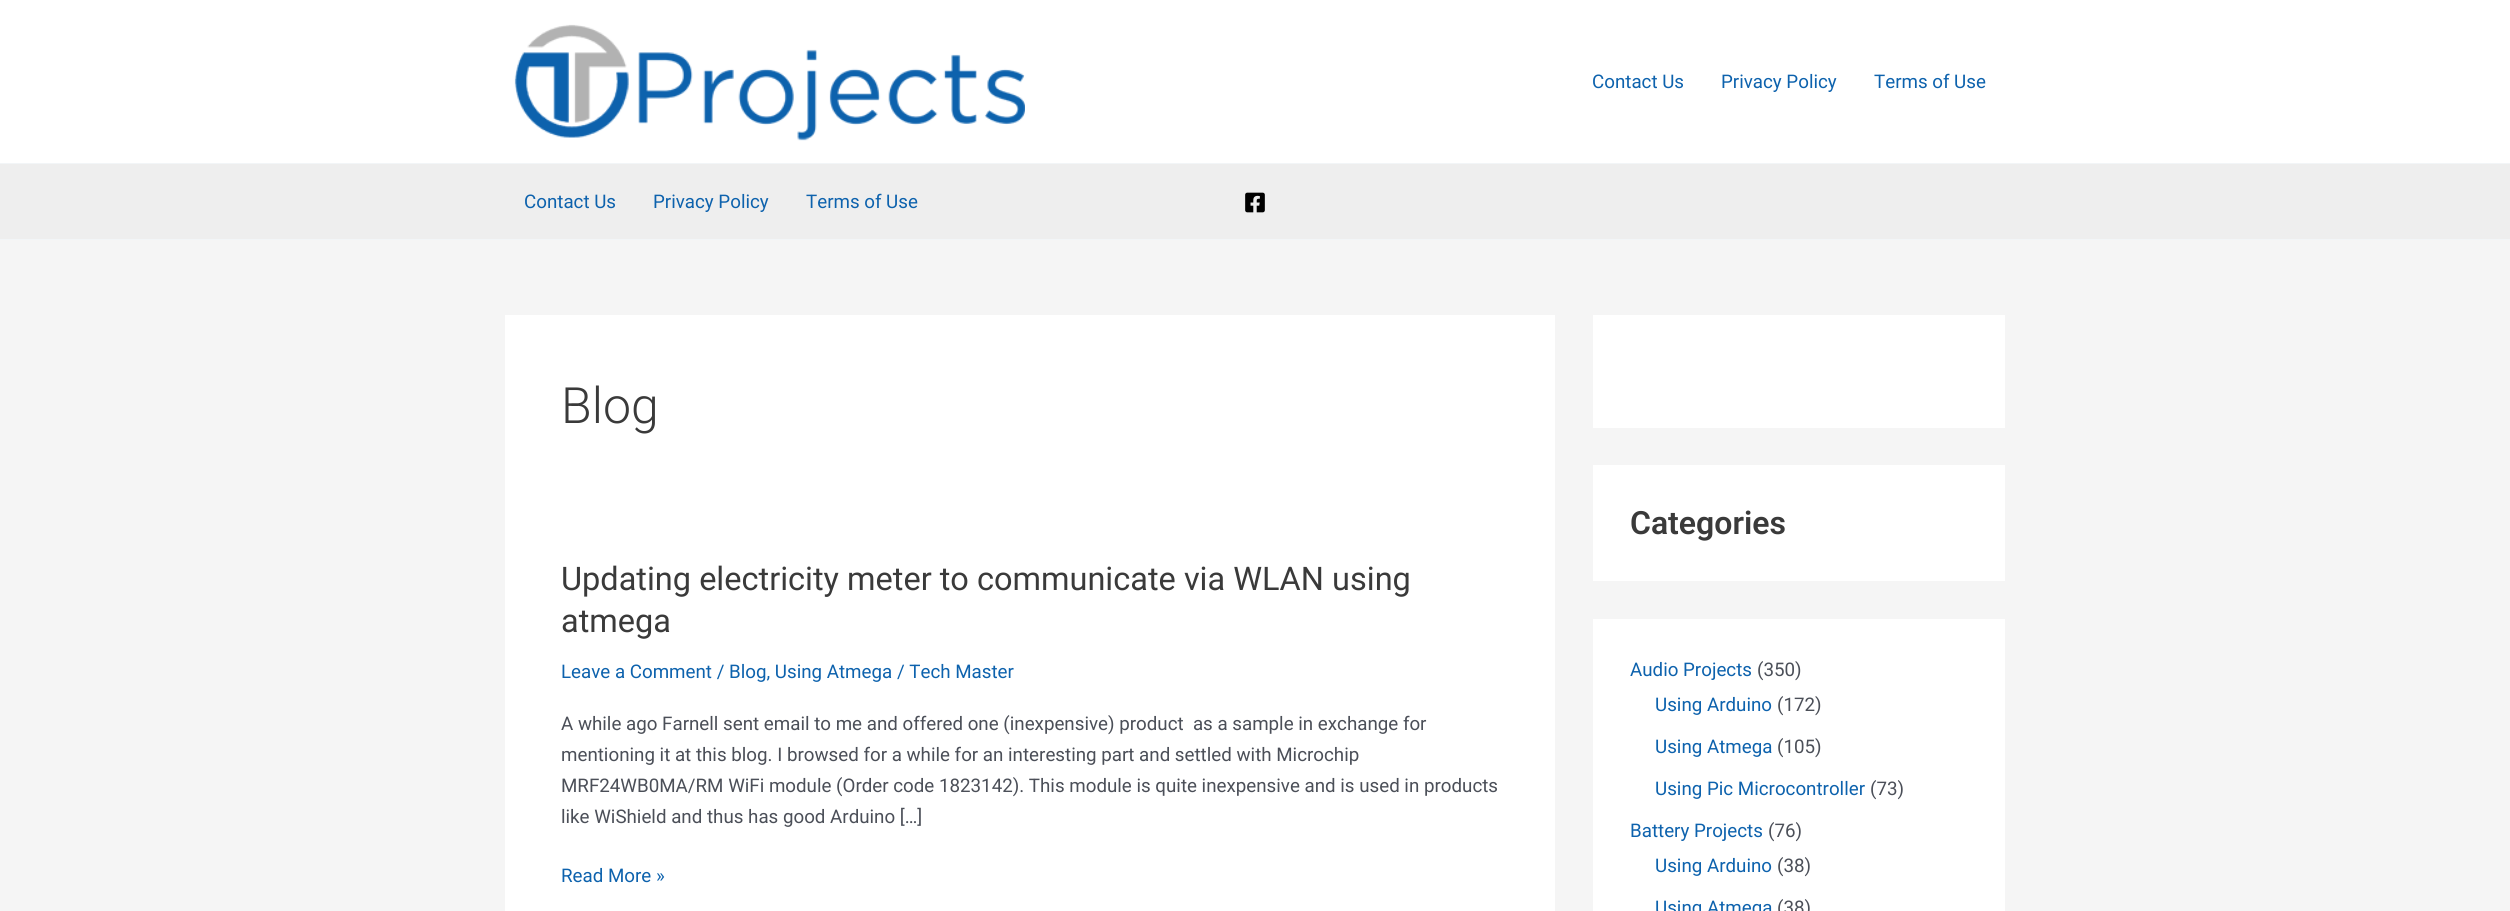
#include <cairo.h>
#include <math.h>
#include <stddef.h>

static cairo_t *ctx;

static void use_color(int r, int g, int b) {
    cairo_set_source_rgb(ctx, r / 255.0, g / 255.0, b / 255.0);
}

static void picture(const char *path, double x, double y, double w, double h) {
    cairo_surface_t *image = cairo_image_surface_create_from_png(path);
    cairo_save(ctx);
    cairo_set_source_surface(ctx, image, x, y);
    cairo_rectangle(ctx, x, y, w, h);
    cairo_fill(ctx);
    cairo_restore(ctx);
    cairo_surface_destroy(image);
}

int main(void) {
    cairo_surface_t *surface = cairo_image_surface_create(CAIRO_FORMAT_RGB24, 2510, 911);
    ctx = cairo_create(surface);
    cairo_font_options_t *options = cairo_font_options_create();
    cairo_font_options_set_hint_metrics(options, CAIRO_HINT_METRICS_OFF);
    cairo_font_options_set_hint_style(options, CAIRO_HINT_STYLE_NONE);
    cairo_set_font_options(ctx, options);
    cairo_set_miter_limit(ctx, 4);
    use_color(245, 245, 245);
    cairo_paint(ctx);
    use_color(255, 255, 255);
    cairo_rectangle(ctx, 0, 0, 2510, 163);
    cairo_fill(ctx);
    use_color(242, 245, 247);
    cairo_rectangle(ctx, 0, 163, 2510, 1);
    cairo_fill(ctx);
    picture("img1.png", 514, 24, 511, 117);
    cairo_select_font_face(ctx, "Roboto", CAIRO_FONT_SLANT_NORMAL, CAIRO_FONT_WEIGHT_NORMAL);
    cairo_set_font_size(ctx, 18.75);
    use_color(13, 98, 173);
    cairo_move_to(ctx, 1592, 88);
    cairo_show_text(ctx, "Contact Us");
    cairo_move_to(ctx, 1721, 88);
    cairo_show_text(ctx, "Privacy Policy");
    cairo_move_to(ctx, 1874, 88);
    cairo_show_text(ctx, "Terms of Use");
    use_color(238, 238, 238);
    cairo_rectangle(ctx, 0, 164, 2510, 75);
    cairo_fill(ctx);
    use_color(242, 245, 247);
    cairo_rectangle(ctx, 0, 239, 2510, 1);
    cairo_fill(ctx);
    use_color(13, 98, 173);
    cairo_move_to(ctx, 524, 208);
    cairo_show_text(ctx, "Contact Us");
    cairo_move_to(ctx, 653, 208);
    cairo_show_text(ctx, "Privacy Policy");
    cairo_move_to(ctx, 806, 208);
    cairo_show_text(ctx, "Terms of Use");
    picture("img2.png", 1245, 192, 20, 21);
    use_color(255, 255, 255);
    cairo_rectangle(ctx, 505, 315, 1050, 596);
    cairo_fill(ctx);
    cairo_select_font_face(ctx, "Roboto Light", CAIRO_FONT_SLANT_NORMAL, CAIRO_FONT_WEIGHT_NORMAL);
    cairo_set_font_size(ctx, 50);
    use_color(58, 58, 58);
    cairo_move_to(ctx, 561, 423);
    cairo_show_text(ctx, "Blog");
    cairo_select_font_face(ctx, "Roboto", CAIRO_FONT_SLANT_NORMAL, CAIRO_FONT_WEIGHT_NORMAL);
    cairo_set_font_size(ctx, 32.5);
    cairo_move_to(ctx, 561, 590);
    cairo_show_text(ctx, "Updating electricity meter to communicate via WLAN using");
    cairo_move_to(ctx, 561, 632);
    cairo_show_text(ctx, "atmega");
    cairo_set_font_size(ctx, 18.75);
    use_color(13, 98, 173);
    cairo_move_to(ctx, 561, 678);
    cairo_show_text(ctx, "Leave a Comment / Blog, Using Atmega / Tech Master");
    use_color(75, 79, 88);
    cairo_move_to(ctx, 561, 730);
    cairo_show_text(ctx, "A while ago Farnell sent email to me and offered one (inexpensive) product  as a sample in exchange for");
    cairo_move_to(ctx, 561, 761);
    cairo_show_text(ctx, "mentioning it at this blog. I browsed for a while for an interesting part and settled with Microchip");
    cairo_move_to(ctx, 561, 792);
    cairo_show_text(ctx, "MRF24WB0MA/RM WiFi module (Order code 1823142). This module is quite inexpensive and is used in products");
    cairo_move_to(ctx, 561, 823);
    cairo_show_text(ctx, "like WiShield and thus has good Arduino […]");
    use_color(13, 98, 173);
    cairo_move_to(ctx, 561, 882);
    cairo_show_text(ctx, "Read More »");
    use_color(255, 255, 255);
    cairo_rectangle(ctx, 1593, 315, 412, 113);
    cairo_fill(ctx);
    cairo_rectangle(ctx, 1593, 465, 412, 116);
    cairo_fill(ctx);
    cairo_select_font_face(ctx, "Roboto SemiBold", CAIRO_FONT_SLANT_NORMAL, CAIRO_FONT_WEIGHT_NORMAL);
    cairo_set_font_size(ctx, 32);
    use_color(58, 58, 58);
    cairo_move_to(ctx, 1630, 534);
    cairo_show_text(ctx, "Categories");
    use_color(255, 255, 255);
    cairo_rectangle(ctx, 1593, 619, 412, 292);
    cairo_fill(ctx);
    cairo_select_font_face(ctx, "Roboto", CAIRO_FONT_SLANT_NORMAL, CAIRO_FONT_WEIGHT_NORMAL);
    cairo_set_font_size(ctx, 18.75);
    use_color(13, 98, 173);
    cairo_move_to(ctx, 1630, 676);
    cairo_show_text(ctx, "Audio Projects");
    use_color(75, 79, 88);
    cairo_move_to(ctx, 1757, 676);
    cairo_show_text(ctx, "(350)");
    use_color(13, 98, 173);
    cairo_move_to(ctx, 1655, 711);
    cairo_show_text(ctx, "Using Arduino");
    use_color(75, 79, 88);
    cairo_move_to(ctx, 1777, 711);
    cairo_show_text(ctx, "(172)");
    use_color(13, 98, 173);
    cairo_move_to(ctx, 1655, 753);
    cairo_show_text(ctx, "Using Atmega");
    use_color(75, 79, 88);
    cairo_move_to(ctx, 1777, 753);
    cairo_show_text(ctx, "(105)");
    use_color(13, 98, 173);
    cairo_move_to(ctx, 1655, 795);
    cairo_show_text(ctx, "Using Pic Microcontroller");
    use_color(75, 79, 88);
    cairo_move_to(ctx, 1870, 795);
    cairo_show_text(ctx, "(73)");
    use_color(13, 98, 173);
    cairo_move_to(ctx, 1630, 837);
    cairo_show_text(ctx, "Battery Projects");
    use_color(75, 79, 88);
    cairo_move_to(ctx, 1768, 837);
    cairo_show_text(ctx, "(76)");
    use_color(13, 98, 173);
    cairo_move_to(ctx, 1655, 872);
    cairo_show_text(ctx, "Using Arduino");
    use_color(75, 79, 88);
    cairo_move_to(ctx, 1777, 872);
    cairo_show_text(ctx, "(38)");
    use_color(13, 98, 173);
    cairo_move_to(ctx, 1655, 914);
    cairo_show_text(ctx, "Using Atmega");
    use_color(75, 79, 88);
    cairo_move_to(ctx, 1777, 914);
    cairo_show_text(ctx, "(38)");
    cairo_surface_write_to_png(surface, "result.png");
    cairo_font_options_destroy(options);
    cairo_destroy(ctx);
    cairo_surface_destroy(surface);
    return 0;
}
